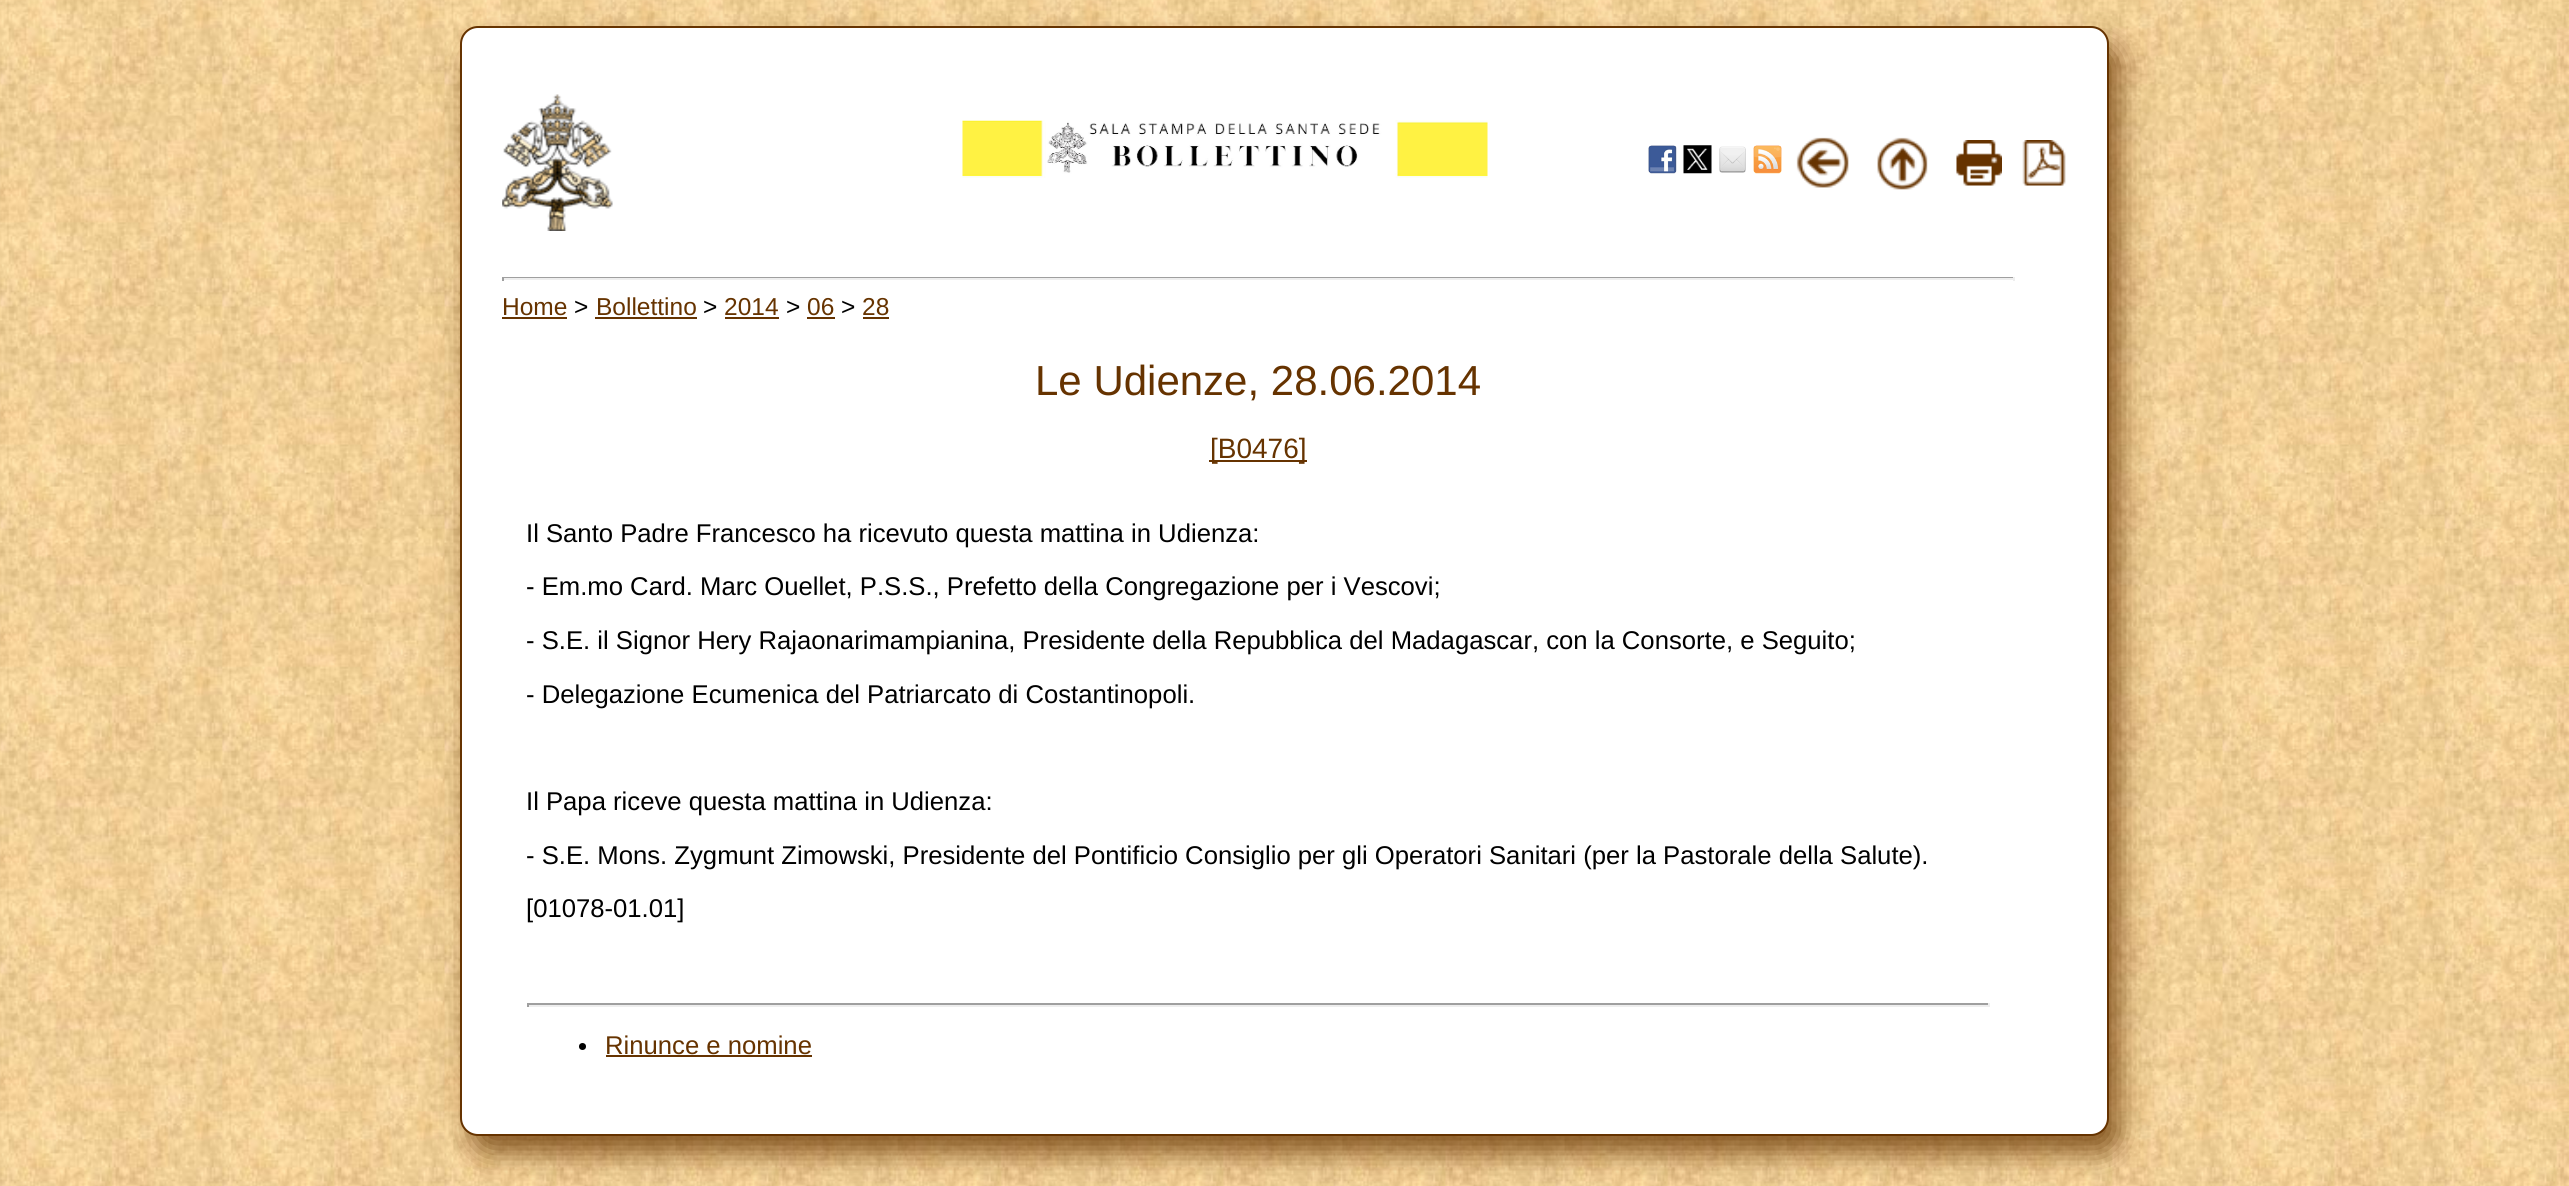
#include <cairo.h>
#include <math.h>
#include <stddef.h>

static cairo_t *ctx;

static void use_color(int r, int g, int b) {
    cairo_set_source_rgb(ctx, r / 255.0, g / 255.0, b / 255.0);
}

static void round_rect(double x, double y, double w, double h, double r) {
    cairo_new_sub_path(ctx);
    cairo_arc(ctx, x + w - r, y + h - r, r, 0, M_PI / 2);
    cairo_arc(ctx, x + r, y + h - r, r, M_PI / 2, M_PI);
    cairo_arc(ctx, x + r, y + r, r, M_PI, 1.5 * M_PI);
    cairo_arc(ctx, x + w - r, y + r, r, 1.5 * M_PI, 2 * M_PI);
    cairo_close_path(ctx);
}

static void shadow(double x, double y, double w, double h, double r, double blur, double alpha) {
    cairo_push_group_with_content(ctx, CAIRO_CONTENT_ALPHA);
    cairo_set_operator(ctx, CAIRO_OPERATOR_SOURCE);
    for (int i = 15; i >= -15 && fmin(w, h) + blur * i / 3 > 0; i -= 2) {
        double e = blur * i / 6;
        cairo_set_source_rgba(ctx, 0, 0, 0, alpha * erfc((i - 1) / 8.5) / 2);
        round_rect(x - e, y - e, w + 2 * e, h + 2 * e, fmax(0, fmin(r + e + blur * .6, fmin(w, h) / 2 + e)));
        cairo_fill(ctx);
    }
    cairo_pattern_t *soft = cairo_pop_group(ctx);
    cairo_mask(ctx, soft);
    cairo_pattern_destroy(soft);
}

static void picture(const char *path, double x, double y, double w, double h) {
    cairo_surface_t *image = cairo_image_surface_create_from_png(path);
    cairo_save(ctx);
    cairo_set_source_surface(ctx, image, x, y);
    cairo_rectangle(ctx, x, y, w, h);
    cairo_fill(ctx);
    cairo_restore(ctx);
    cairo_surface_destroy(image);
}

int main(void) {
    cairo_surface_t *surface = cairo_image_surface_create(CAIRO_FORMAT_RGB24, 2569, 1186);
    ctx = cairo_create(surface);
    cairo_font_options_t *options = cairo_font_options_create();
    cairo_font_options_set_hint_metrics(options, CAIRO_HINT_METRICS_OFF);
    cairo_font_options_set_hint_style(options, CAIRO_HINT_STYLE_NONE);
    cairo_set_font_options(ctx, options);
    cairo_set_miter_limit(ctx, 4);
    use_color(255, 255, 255);
    cairo_paint(ctx);
    picture("img1.png", 0, 0, 2569, 1186);
    use_color(102, 51, 0);
    shadow(471, 44, 1648, 1109, 18, 15, 0.8);
    use_color(255, 255, 255);
    round_rect(461, 27, 1647, 1108, 17);
    cairo_fill_preserve(ctx);
    use_color(102, 51, 0);
    cairo_stroke(ctx);
    picture("img2.png", 502, 94, 111, 137);
    picture("img3.png", 962, 120, 526, 58);
    picture("img4.png", 1648, 145, 29, 29);
    picture("img5.png", 1683, 145, 29, 29);
    picture("img6.png", 1719, 146, 27, 27);
    picture("img7.png", 1753, 145, 29, 29);
    picture("img8.png", 1796, 137, 53, 51);
    picture("img9.png", 1877, 137, 51, 53);
    picture("img10.png", 1956, 140, 46, 46);
    picture("img11.png", 2022, 140, 44, 46);
    use_color(159, 159, 159);
    cairo_rectangle(ctx, 502, 277, 1512, 1);
    cairo_fill(ctx);
    use_color(238, 238, 238);
    cairo_rectangle(ctx, 2013, 277, 2, 4);
    cairo_fill(ctx);
    cairo_rectangle(ctx, 502, 278, 1512, 2);
    cairo_fill(ctx);
    use_color(159, 159, 159);
    cairo_rectangle(ctx, 502, 277, 2, 4);
    cairo_fill(ctx);
    cairo_select_font_face(ctx, "Liberation Sans", CAIRO_FONT_SLANT_NORMAL, CAIRO_FONT_WEIGHT_NORMAL);
    cairo_set_font_size(ctx, 24.5);
    use_color(102, 51, 0);
    cairo_move_to(ctx, 502, 315);
    cairo_show_text(ctx, "Home");
    cairo_rectangle(ctx, 502, 317, 65, 2);
    cairo_fill(ctx);
    use_color(0, 0, 0);
    cairo_move_to(ctx, 574, 315);
    cairo_show_text(ctx, ">");
    use_color(102, 51, 0);
    cairo_move_to(ctx, 596, 315);
    cairo_show_text(ctx, "Bollettino");
    cairo_rectangle(ctx, 595, 317, 102, 2);
    cairo_fill(ctx);
    use_color(0, 0, 0);
    cairo_move_to(ctx, 703, 315);
    cairo_show_text(ctx, ">");
    use_color(102, 51, 0);
    cairo_move_to(ctx, 724, 315);
    cairo_show_text(ctx, "2014");
    cairo_rectangle(ctx, 725, 317, 54, 2);
    cairo_fill(ctx);
    use_color(0, 0, 0);
    cairo_move_to(ctx, 786, 315);
    cairo_show_text(ctx, ">");
    use_color(102, 51, 0);
    cairo_move_to(ctx, 807, 315);
    cairo_show_text(ctx, "06");
    cairo_rectangle(ctx, 807, 317, 28, 2);
    cairo_fill(ctx);
    use_color(0, 0, 0);
    cairo_move_to(ctx, 841, 315);
    cairo_show_text(ctx, ">");
    use_color(102, 51, 0);
    cairo_move_to(ctx, 862, 315);
    cairo_show_text(ctx, "28");
    cairo_rectangle(ctx, 863, 317, 26, 2);
    cairo_fill(ctx);
    cairo_set_font_size(ctx, 42);
    cairo_move_to(ctx, 1035, 395);
    cairo_show_text(ctx, "Le Udienze, 28.06.2014");
    cairo_rectangle(ctx, 1209, 460, 98, 2);
    cairo_fill(ctx);
    cairo_set_font_size(ctx, 28);
    cairo_move_to(ctx, 1210, 458);
    cairo_show_text(ctx, "[B0476]");
    cairo_set_font_size(ctx, 25.67);
    use_color(0, 0, 0);
    cairo_move_to(ctx, 526, 542);
    cairo_show_text(ctx, "Il Santo Padre Francesco ha ricevuto questa mattina in Udienza:");
    cairo_move_to(ctx, 526, 595);
    cairo_show_text(ctx, "- Em.mo Card. Marc Ouellet, P.S.S., Prefetto della Congregazione per i Vescovi;");
    cairo_move_to(ctx, 526, 649);
    cairo_show_text(ctx, "- S.E. il Signor Hery Rajaonarimampianina, Presidente della Repubblica del Madagascar, con la Consorte, e Seguito;");
    cairo_move_to(ctx, 526, 703);
    cairo_show_text(ctx, "- Delegazione Ecumenica del Patriarcato di Costantinopoli.");
    cairo_move_to(ctx, 526, 810);
    cairo_show_text(ctx, "Il Papa riceve questa mattina in Udienza:");
    cairo_move_to(ctx, 526, 864);
    cairo_show_text(ctx, "- S.E. Mons. Zygmunt Zimowski, Presidente del Pontificio Consiglio per gli Operatori Sanitari (per la Pastorale della Salute).");
    cairo_move_to(ctx, 526, 917);
    cairo_show_text(ctx, "[01078-01.01]");
    use_color(159, 159, 159);
    cairo_rectangle(ctx, 527, 1003, 1463, 2);
    cairo_fill(ctx);
    use_color(238, 238, 238);
    cairo_rectangle(ctx, 1988, 1003, 2, 4);
    cairo_fill(ctx);
    cairo_rectangle(ctx, 527, 1005, 1463, 2);
    cairo_fill(ctx);
    use_color(159, 159, 159);
    cairo_rectangle(ctx, 527, 1003, 2, 4);
    cairo_fill(ctx);
    use_color(0, 0, 0);
    cairo_arc(ctx, 582.5, 1046.5, 3.5, 0, 2 * M_PI);
    cairo_fill(ctx);
    use_color(102, 51, 0);
    cairo_move_to(ctx, 605, 1054);
    cairo_show_text(ctx, "Rinunce e nomine");
    cairo_rectangle(ctx, 606, 1055, 206, 2);
    cairo_fill(ctx);
    cairo_surface_write_to_png(surface, "result.png");
    cairo_font_options_destroy(options);
    cairo_destroy(ctx);
    cairo_surface_destroy(surface);
    return 0;
}
